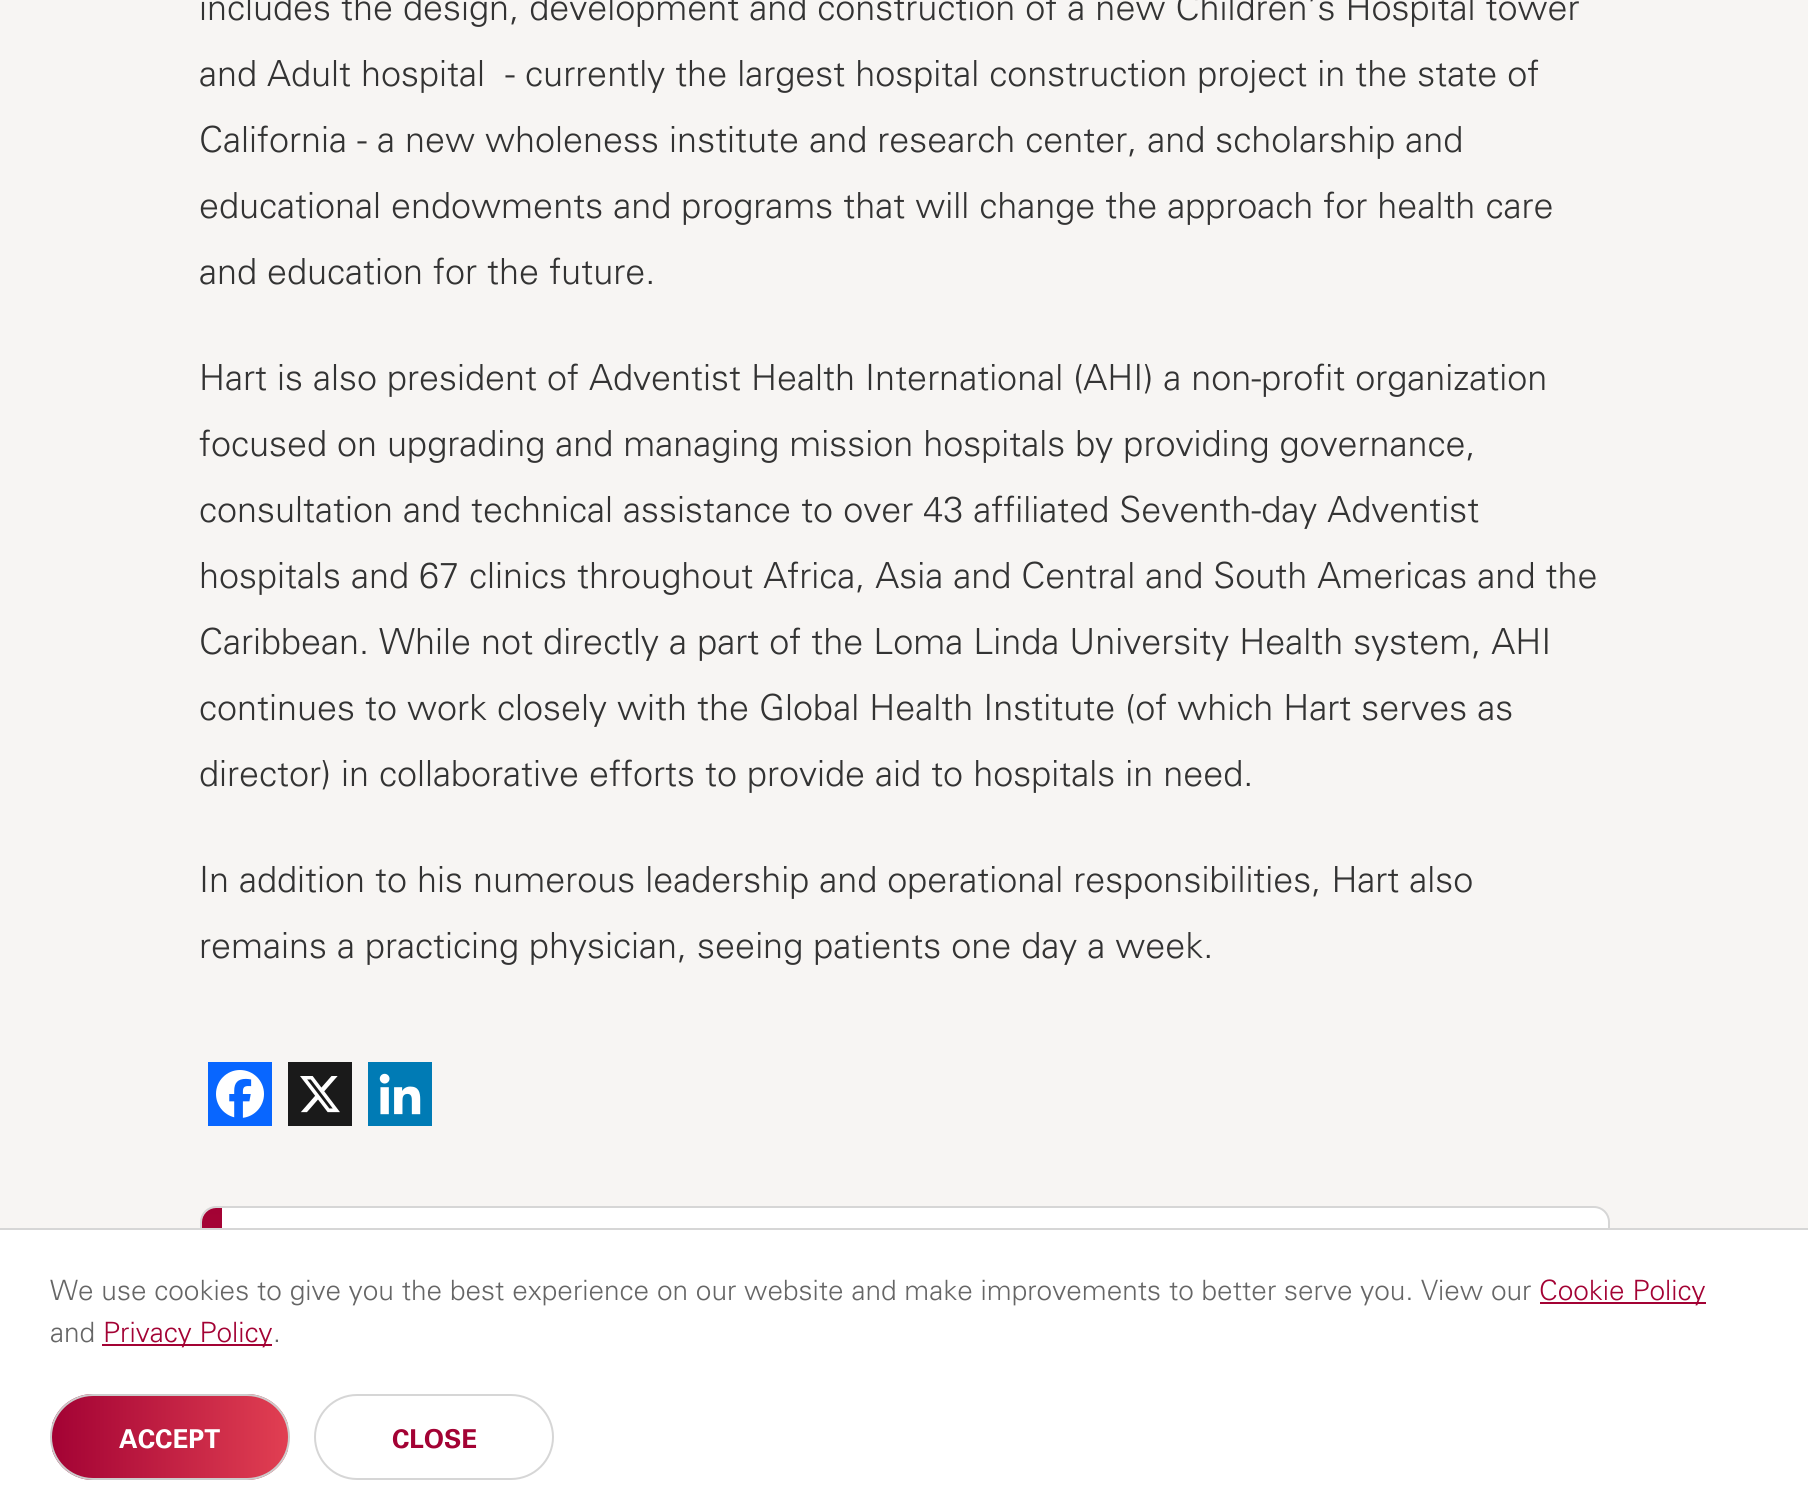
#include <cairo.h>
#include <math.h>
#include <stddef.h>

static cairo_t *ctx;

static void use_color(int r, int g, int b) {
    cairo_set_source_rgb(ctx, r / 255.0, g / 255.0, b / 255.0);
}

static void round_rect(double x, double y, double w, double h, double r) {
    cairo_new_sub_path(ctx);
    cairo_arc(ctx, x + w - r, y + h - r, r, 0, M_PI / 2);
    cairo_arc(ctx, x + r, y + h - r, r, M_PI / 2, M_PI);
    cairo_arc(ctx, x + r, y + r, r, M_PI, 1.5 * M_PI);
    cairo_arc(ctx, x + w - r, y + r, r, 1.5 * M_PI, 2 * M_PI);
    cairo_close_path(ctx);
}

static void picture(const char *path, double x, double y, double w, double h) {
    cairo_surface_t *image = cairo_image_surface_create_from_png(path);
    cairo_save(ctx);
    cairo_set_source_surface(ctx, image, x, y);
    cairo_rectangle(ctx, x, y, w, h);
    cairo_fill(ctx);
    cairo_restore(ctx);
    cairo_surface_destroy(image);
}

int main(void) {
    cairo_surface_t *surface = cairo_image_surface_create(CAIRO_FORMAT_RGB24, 1808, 1511);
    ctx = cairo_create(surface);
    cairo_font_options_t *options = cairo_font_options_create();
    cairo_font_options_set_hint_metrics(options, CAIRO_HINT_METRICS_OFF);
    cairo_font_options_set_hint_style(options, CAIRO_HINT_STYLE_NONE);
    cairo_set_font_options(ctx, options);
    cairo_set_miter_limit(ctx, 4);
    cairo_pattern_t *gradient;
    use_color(247, 245, 243);
    cairo_paint(ctx);
    cairo_select_font_face(ctx, "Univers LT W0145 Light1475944 Light", CAIRO_FONT_SLANT_NORMAL, CAIRO_FONT_WEIGHT_NORMAL);
    cairo_set_font_size(ctx, 36);
    use_color(51, 51, 51);
    cairo_move_to(ctx, 199, 20);
    cairo_show_text(ctx, "includes the design, development and construction of a new Children’s Hospital tower");
    cairo_move_to(ctx, 199, 86);
    cairo_show_text(ctx, "and Adult hospital  - currently the largest hospital construction project in the state of");
    cairo_move_to(ctx, 199, 152);
    cairo_show_text(ctx, "California - a new wholeness institute and research center, and scholarship and");
    cairo_move_to(ctx, 199, 218);
    cairo_show_text(ctx, "educational endowments and programs that will change the approach for health care");
    cairo_move_to(ctx, 199, 284);
    cairo_show_text(ctx, "and education for the future.");
    cairo_move_to(ctx, 199, 390);
    cairo_show_text(ctx, "Hart is also president of Adventist Health International (AHI) a non-profit organization");
    cairo_move_to(ctx, 199, 456);
    cairo_show_text(ctx, "focused on upgrading and managing mission hospitals by providing governance,");
    cairo_move_to(ctx, 199, 522);
    cairo_show_text(ctx, "consultation and technical assistance to over 43 affiliated Seventh-day Adventist");
    cairo_move_to(ctx, 199, 588);
    cairo_show_text(ctx, "hospitals and 67 clinics throughout Africa, Asia and Central and South Americas and the");
    cairo_move_to(ctx, 199, 654);
    cairo_show_text(ctx, "Caribbean. While not directly a part of the Loma Linda University Health system, AHI");
    cairo_move_to(ctx, 199, 720);
    cairo_show_text(ctx, "continues to work closely with the Global Health Institute (of which Hart serves as");
    cairo_move_to(ctx, 199, 786);
    cairo_show_text(ctx, "director) in collaborative efforts to provide aid to hospitals in need.");
    cairo_move_to(ctx, 199, 892);
    cairo_show_text(ctx, "In addition to his numerous leadership and operational responsibilities, Hart also");
    cairo_move_to(ctx, 199, 958);
    cairo_show_text(ctx, "remains a practicing physician, seeing patients one day a week.");
    use_color(8, 102, 255);
    cairo_rectangle(ctx, 208, 1062, 64, 64);
    cairo_fill(ctx);
    picture("img1.png", 216, 1070, 48, 48);
    use_color(26, 26, 26);
    cairo_rectangle(ctx, 288, 1062, 64, 64);
    cairo_fill(ctx);
    picture("img2.png", 300, 1076, 40, 37);
    use_color(0, 123, 181);
    cairo_rectangle(ctx, 368, 1062, 64, 64);
    cairo_fill(ctx);
    picture("img3.png", 379, 1073, 42, 42);
    use_color(255, 255, 255);
    round_rect(201, 1207, 1408, 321, 15);
    cairo_fill_preserve(ctx);
    use_color(214, 214, 214);
    cairo_stroke(ctx);
    gradient = cairo_pattern_create_linear(212, 1208, 212, 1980);
    cairo_pattern_add_color_stop_rgba(gradient, 0, 0.639, 0.008, 0.204, 1);
    cairo_pattern_add_color_stop_rgba(gradient, 1, 0.882, 0.247, 0.322, 1);
    cairo_set_source(ctx, gradient);
    cairo_pattern_destroy(gradient);
    cairo_new_path(ctx);
    cairo_move_to(ctx, 216, 1208);
    cairo_line_to(ctx, 222, 1208);
    cairo_line_to(ctx, 222, 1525);
    cairo_line_to(ctx, 216, 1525);
    cairo_curve_to(ctx, 208.5, 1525, 202, 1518.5, 202, 1511);
    cairo_line_to(ctx, 202, 1222);
    cairo_curve_to(ctx, 202, 1214.5, 208.5, 1208, 216, 1208);
    cairo_close_path(ctx);
    cairo_fill(ctx);
    use_color(255, 255, 255);
    cairo_rectangle(ctx, 0, 1230, 1808, 281);
    cairo_fill(ctx);
    use_color(214, 214, 214);
    cairo_rectangle(ctx, 0, 1228, 1808, 2);
    cairo_fill(ctx);
    cairo_set_font_size(ctx, 28);
    use_color(102, 102, 102);
    cairo_move_to(ctx, 50, 1300);
    cairo_show_text(ctx, "We use cookies to give you the best experience on our website and make improvements to better serve you. View our");
    use_color(163, 2, 52);
    cairo_rectangle(ctx, 1540, 1302, 166, 2);
    cairo_fill(ctx);
    cairo_move_to(ctx, 1539, 1300);
    cairo_show_text(ctx, "Cookie Policy");
    use_color(102, 102, 102);
    cairo_move_to(ctx, 50, 1342);
    cairo_show_text(ctx, "and");
    use_color(163, 2, 52);
    cairo_rectangle(ctx, 102, 1344, 170, 2);
    cairo_fill(ctx);
    cairo_move_to(ctx, 103, 1342);
    cairo_show_text(ctx, "Privacy Policy");
    use_color(102, 102, 102);
    cairo_move_to(ctx, 273, 1342);
    cairo_show_text(ctx, ".");
    cairo_save(ctx);
    round_rect(50, 1394, 240, 86, 43);
    cairo_clip(ctx);
    gradient = cairo_pattern_create_linear(52, 1437, 288, 1437);
    cairo_pattern_add_color_stop_rgba(gradient, 0, 0.639, 0.008, 0.204, 1);
    cairo_pattern_add_color_stop_rgba(gradient, 1, 0.882, 0.247, 0.322, 1);
    cairo_set_source(ctx, gradient);
    cairo_pattern_destroy(gradient);
    cairo_rectangle(ctx, 52, 1394, 236, 86);
    cairo_fill(ctx);
    cairo_restore(ctx);
    round_rect(51, 1395, 238, 84, 42);
    use_color(204, 204, 204);
    cairo_stroke(ctx);
    cairo_select_font_face(ctx, "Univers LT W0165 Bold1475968", CAIRO_FONT_SLANT_NORMAL, CAIRO_FONT_WEIGHT_BOLD);
    cairo_set_font_size(ctx, 26);
    use_color(255, 255, 255);
    cairo_move_to(ctx, 119, 1448);
    cairo_show_text(ctx, "ACCEPT");
    round_rect(315, 1395, 238, 84, 42);
    use_color(214, 214, 214);
    cairo_stroke(ctx);
    use_color(163, 2, 52);
    cairo_move_to(ctx, 392, 1448);
    cairo_show_text(ctx, "CLOSE");
    cairo_surface_write_to_png(surface, "result.png");
    cairo_font_options_destroy(options);
    cairo_destroy(ctx);
    cairo_surface_destroy(surface);
    return 0;
}
